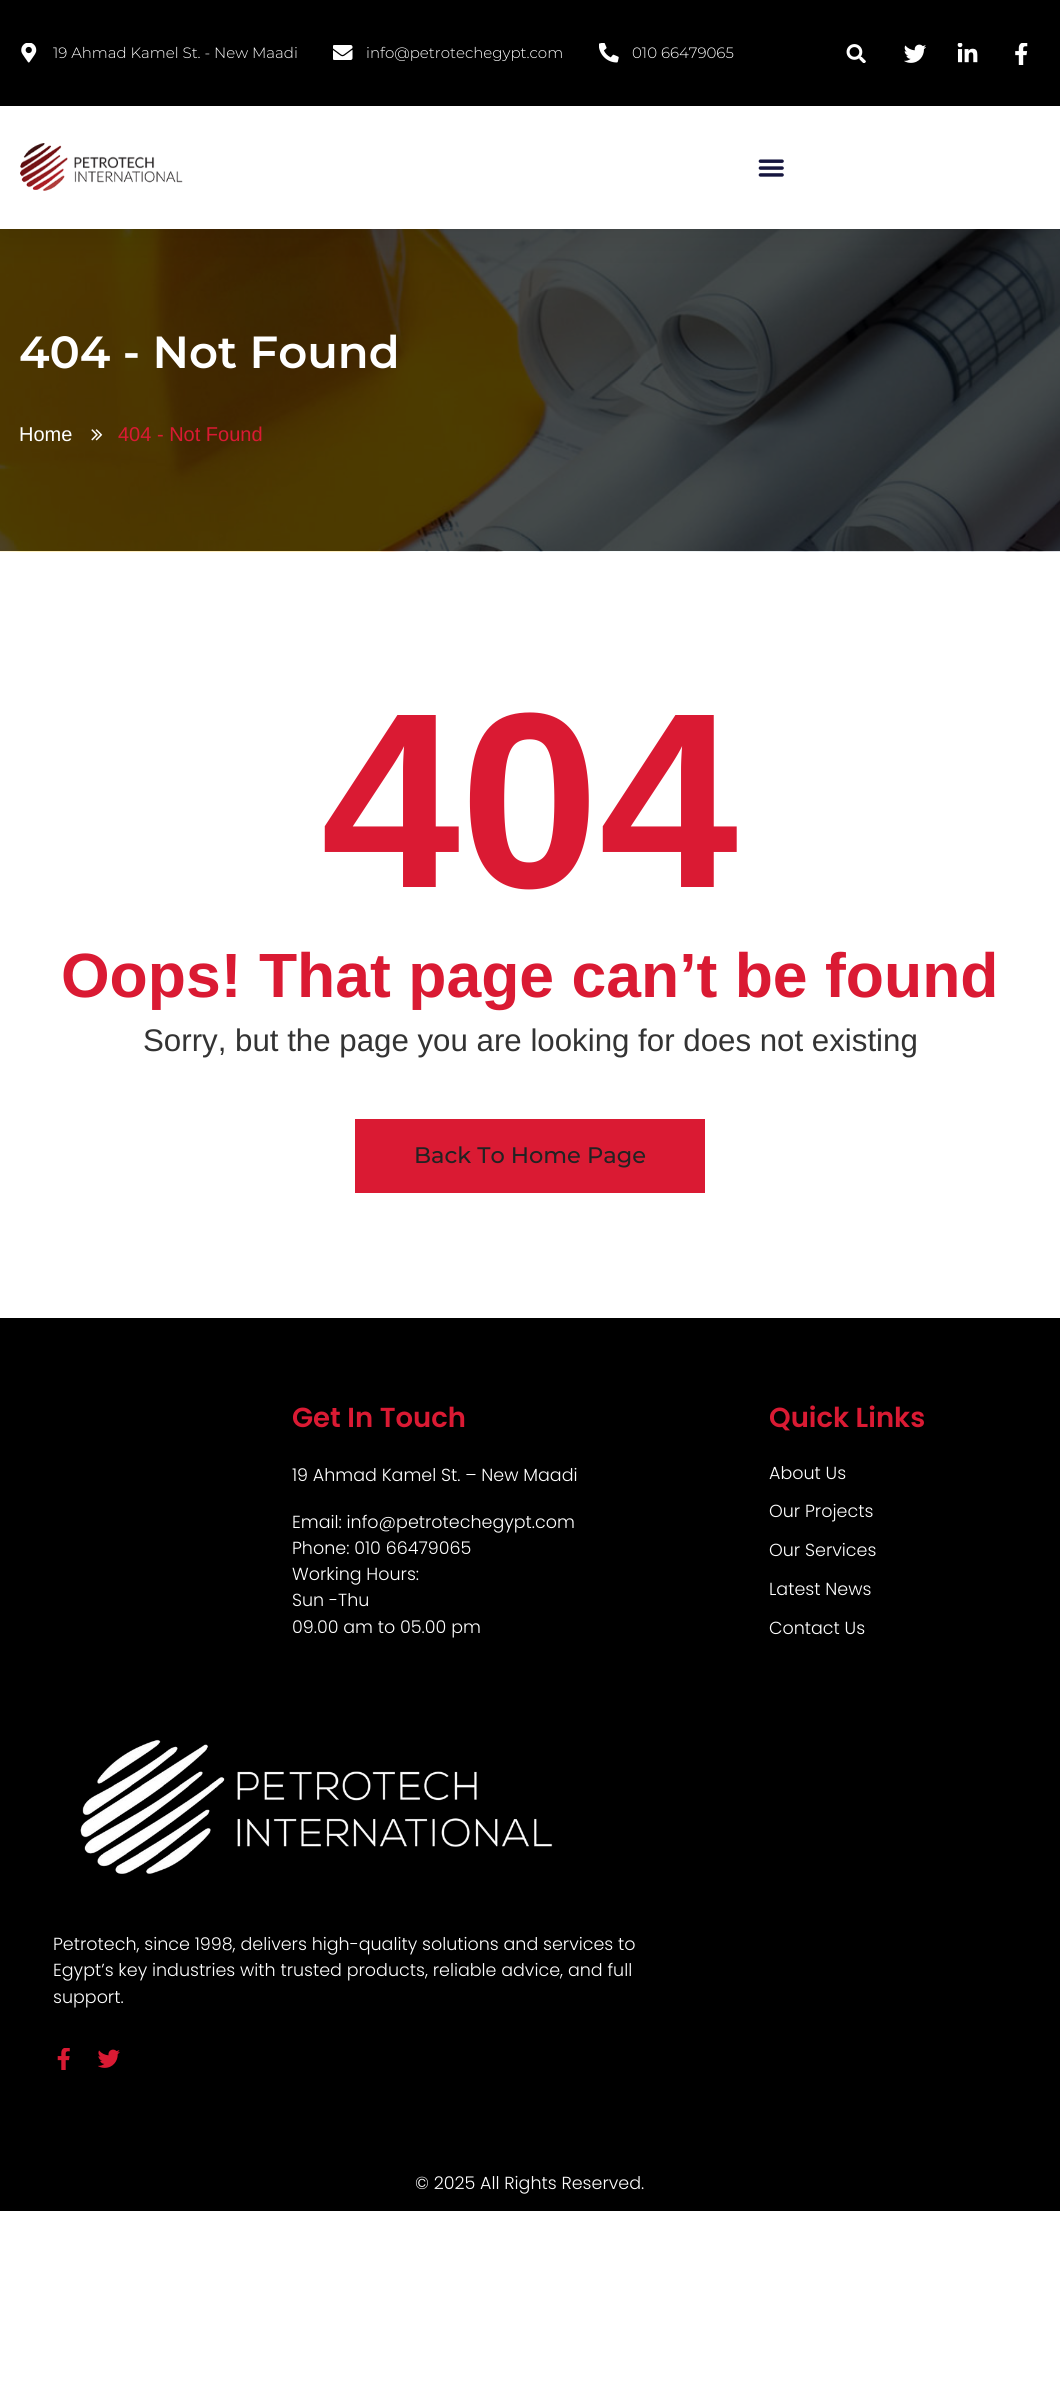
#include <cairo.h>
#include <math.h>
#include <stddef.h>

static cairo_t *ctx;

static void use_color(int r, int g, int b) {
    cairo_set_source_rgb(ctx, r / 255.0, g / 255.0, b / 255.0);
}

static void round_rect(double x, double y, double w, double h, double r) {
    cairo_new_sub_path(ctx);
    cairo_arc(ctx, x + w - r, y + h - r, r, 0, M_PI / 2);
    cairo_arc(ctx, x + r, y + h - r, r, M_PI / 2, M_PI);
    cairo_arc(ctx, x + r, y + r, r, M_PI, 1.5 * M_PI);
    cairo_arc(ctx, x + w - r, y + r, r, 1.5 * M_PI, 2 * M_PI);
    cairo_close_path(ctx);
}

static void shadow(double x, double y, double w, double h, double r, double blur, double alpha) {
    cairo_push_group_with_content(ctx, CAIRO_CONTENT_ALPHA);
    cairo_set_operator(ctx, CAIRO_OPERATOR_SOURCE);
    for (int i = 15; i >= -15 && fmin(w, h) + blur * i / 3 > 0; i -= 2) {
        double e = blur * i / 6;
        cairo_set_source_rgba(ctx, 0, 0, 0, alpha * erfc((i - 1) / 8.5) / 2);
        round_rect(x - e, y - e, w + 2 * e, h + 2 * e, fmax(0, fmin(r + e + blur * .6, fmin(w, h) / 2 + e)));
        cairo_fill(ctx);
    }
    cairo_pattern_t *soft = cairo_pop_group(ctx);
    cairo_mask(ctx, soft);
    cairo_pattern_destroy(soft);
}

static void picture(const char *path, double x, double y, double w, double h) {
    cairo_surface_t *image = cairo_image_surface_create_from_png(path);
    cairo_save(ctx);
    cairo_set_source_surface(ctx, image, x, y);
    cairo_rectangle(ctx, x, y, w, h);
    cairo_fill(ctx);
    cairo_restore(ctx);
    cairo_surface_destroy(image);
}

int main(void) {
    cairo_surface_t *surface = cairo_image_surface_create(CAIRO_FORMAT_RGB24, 1060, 2389);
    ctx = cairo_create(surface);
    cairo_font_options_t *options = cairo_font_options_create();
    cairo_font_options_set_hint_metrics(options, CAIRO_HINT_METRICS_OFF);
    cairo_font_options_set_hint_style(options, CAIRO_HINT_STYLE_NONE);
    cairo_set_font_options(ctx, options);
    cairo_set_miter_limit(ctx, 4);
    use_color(255, 255, 255);
    cairo_paint(ctx);
    picture("img10.png", 0, 229, 1060, 323);
    use_color(0, 0, 0);
    shadow(0, 6, 1060, 229, 0, 19, 0.1);
    use_color(0, 0, 0);
    cairo_rectangle(ctx, 0, 0, 1060, 106);
    cairo_fill(ctx);
    picture("img1.png", 21, 43, 16, 20);
    cairo_select_font_face(ctx, "Montserrat Light", CAIRO_FONT_SLANT_NORMAL, CAIRO_FONT_WEIGHT_NORMAL);
    cairo_set_font_size(ctx, 15);
    use_color(255, 255, 255);
    cairo_move_to(ctx, 53, 58);
    cairo_show_text(ctx, "19 Ahmad Kamel St. - New Maadi");
    picture("img2.png", 333, 45, 20, 15);
    cairo_move_to(ctx, 366, 58);
    cairo_show_text(ctx, "info@petrotechegypt.com");
    picture("img3.png", 599, 43, 20, 20);
    cairo_move_to(ctx, 632, 58);
    cairo_show_text(ctx, "010 66479065");
    picture("img4.png", 846, 44, 20, 19);
    picture("img5.png", 904, 44, 22, 19);
    picture("img6.png", 957, 43, 21, 20);
    picture("img7.png", 1015, 43, 13, 22);
    cairo_rectangle(ctx, 0, 106, 1060, 123);
    cairo_fill(ctx);
    picture("img8.png", 20, 143, 163, 48);
    picture("img9.png", 758, 159, 26, 18);
    cairo_select_font_face(ctx, "Montserrat SemiBold", CAIRO_FONT_SLANT_NORMAL, CAIRO_FONT_WEIGHT_NORMAL);
    cairo_set_font_size(ctx, 45);
    cairo_move_to(ctx, 19, 368);
    cairo_show_text(ctx, "404 - Not Found");
    cairo_select_font_face(ctx, "Liberation Sans", CAIRO_FONT_SLANT_NORMAL, CAIRO_FONT_WEIGHT_NORMAL);
    cairo_set_font_size(ctx, 20);
    cairo_move_to(ctx, 19, 441);
    cairo_show_text(ctx, "Home");
    picture("img11.png", 91, 429, 12, 12);
    use_color(218, 26, 51);
    cairo_move_to(ctx, 118, 441);
    cairo_show_text(ctx, "404 - Not Found");
    cairo_select_font_face(ctx, "Liberation Sans", CAIRO_FONT_SLANT_NORMAL, CAIRO_FONT_WEIGHT_BOLD);
    cairo_set_font_size(ctx, 250);
    cairo_move_to(ctx, 321, 887);
    cairo_show_text(ctx, "404");
    cairo_set_font_size(ctx, 62.5);
    cairo_move_to(ctx, 61, 997);
    cairo_show_text(ctx, "Oops! That page can’t be found");
    cairo_select_font_face(ctx, "Liberation Sans", CAIRO_FONT_SLANT_NORMAL, CAIRO_FONT_WEIGHT_NORMAL);
    cairo_set_font_size(ctx, 31.25);
    use_color(51, 51, 51);
    cairo_move_to(ctx, 143, 1051);
    cairo_show_text(ctx, "Sorry, but the page you are looking for does not existing");
    use_color(218, 26, 51);
    cairo_rectangle(ctx, 355, 1119, 350, 74);
    cairo_fill(ctx);
    cairo_select_font_face(ctx, "Montserrat Medium", CAIRO_FONT_SLANT_NORMAL, CAIRO_FONT_WEIGHT_NORMAL);
    cairo_set_font_size(ctx, 22.5);
    use_color(34, 34, 34);
    cairo_move_to(ctx, 414, 1163);
    cairo_show_text(ctx, "Back To Home Page");
    use_color(0, 0, 0);
    cairo_rectangle(ctx, 0, 1318, 1060, 893);
    cairo_fill(ctx);
    cairo_select_font_face(ctx, "Poppins SemiBold", CAIRO_FONT_SLANT_NORMAL, CAIRO_FONT_WEIGHT_NORMAL);
    cairo_set_font_size(ctx, 27.5);
    use_color(218, 26, 51);
    cairo_move_to(ctx, 292, 1427);
    cairo_show_text(ctx, "Get In Touch");
    cairo_select_font_face(ctx, "Poppins Light", CAIRO_FONT_SLANT_NORMAL, CAIRO_FONT_WEIGHT_NORMAL);
    cairo_set_font_size(ctx, 17.5);
    use_color(255, 255, 255);
    cairo_move_to(ctx, 292, 1481);
    cairo_show_text(ctx, "19 Ahmad Kamel St. – New Maadi");
    cairo_move_to(ctx, 292, 1528);
    cairo_show_text(ctx, "Email: info@petrotechegypt.com");
    cairo_move_to(ctx, 292, 1554);
    cairo_show_text(ctx, "Phone: 010 66479065");
    cairo_move_to(ctx, 292, 1580);
    cairo_show_text(ctx, "Working Hours:");
    cairo_move_to(ctx, 292, 1606);
    cairo_show_text(ctx, "Sun -Thu");
    cairo_move_to(ctx, 292, 1633);
    cairo_show_text(ctx, "09.00 am to 05.00 pm");
    cairo_select_font_face(ctx, "Poppins SemiBold", CAIRO_FONT_SLANT_NORMAL, CAIRO_FONT_WEIGHT_NORMAL);
    cairo_set_font_size(ctx, 27.5);
    use_color(218, 26, 51);
    cairo_move_to(ctx, 769, 1427);
    cairo_show_text(ctx, "Quick Links");
    cairo_select_font_face(ctx, "Poppins Light", CAIRO_FONT_SLANT_NORMAL, CAIRO_FONT_WEIGHT_NORMAL);
    cairo_set_font_size(ctx, 17.5);
    use_color(255, 255, 255);
    cairo_move_to(ctx, 769, 1479);
    cairo_show_text(ctx, "About Us");
    cairo_move_to(ctx, 769, 1517);
    cairo_show_text(ctx, "Our Projects");
    cairo_move_to(ctx, 769, 1556);
    cairo_show_text(ctx, "Our Services");
    cairo_move_to(ctx, 769, 1595);
    cairo_show_text(ctx, "Latest News");
    cairo_move_to(ctx, 769, 1634);
    cairo_show_text(ctx, "Contact Us");
    picture("img12.png", 80, 1739, 473, 135);
    cairo_move_to(ctx, 53, 1950);
    cairo_show_text(ctx, "Petrotech, since 1998, delivers high-quality solutions and services to");
    cairo_move_to(ctx, 53, 1976);
    cairo_show_text(ctx, "Egypt’s key industries with trusted products, reliable advice, and full");
    cairo_move_to(ctx, 53, 2003);
    cairo_show_text(ctx, "support.");
    picture("img13.png", 57, 2048, 13, 22);
    picture("img14.png", 98, 2049, 22, 19);
    cairo_move_to(ctx, 415, 2189);
    cairo_show_text(ctx, "© 2025 All Rights Reserved.");
    cairo_surface_write_to_png(surface, "result.png");
    cairo_font_options_destroy(options);
    cairo_destroy(ctx);
    cairo_surface_destroy(surface);
    return 0;
}
